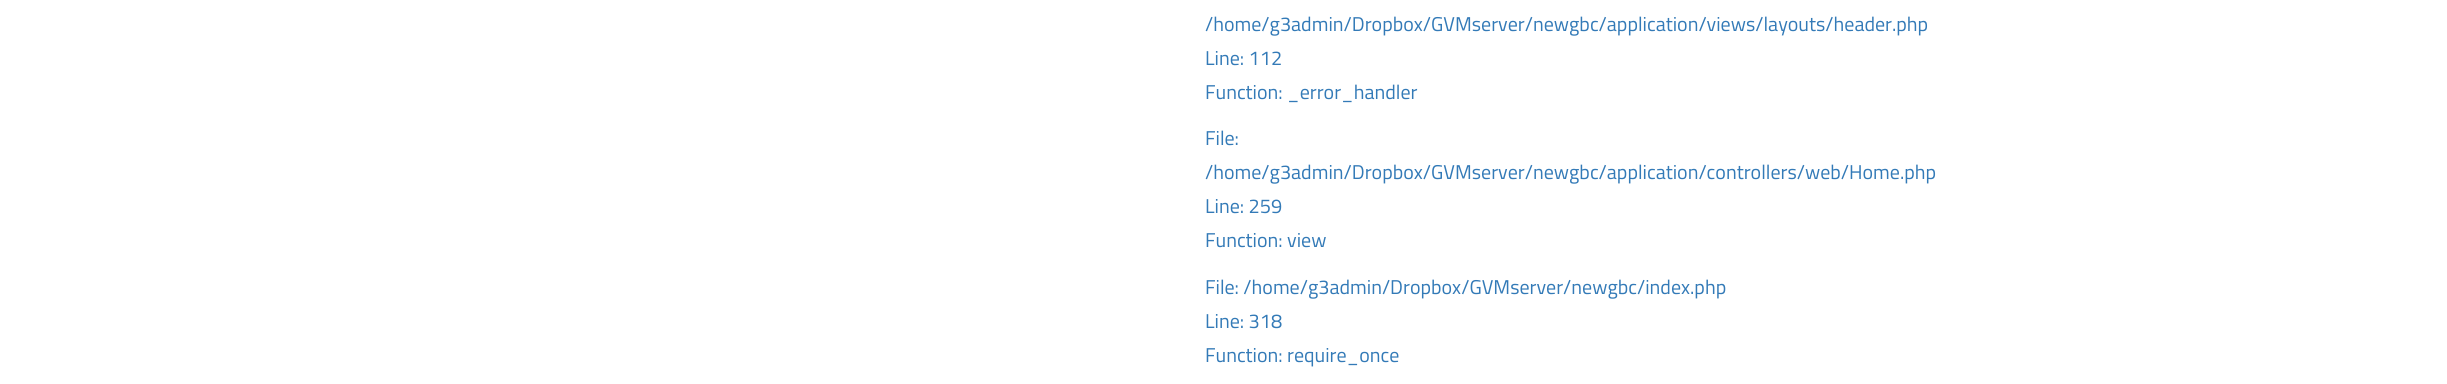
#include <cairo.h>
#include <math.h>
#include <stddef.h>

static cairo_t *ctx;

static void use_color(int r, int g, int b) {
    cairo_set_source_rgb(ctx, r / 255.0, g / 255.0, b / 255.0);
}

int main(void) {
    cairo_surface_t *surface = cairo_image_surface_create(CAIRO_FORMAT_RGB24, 2447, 384);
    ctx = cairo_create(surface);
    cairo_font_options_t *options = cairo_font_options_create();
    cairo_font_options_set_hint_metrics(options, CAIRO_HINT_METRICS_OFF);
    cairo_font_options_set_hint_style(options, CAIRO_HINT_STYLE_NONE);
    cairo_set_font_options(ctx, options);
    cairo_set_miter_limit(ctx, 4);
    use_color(255, 255, 255);
    cairo_paint(ctx);
    cairo_select_font_face(ctx, "Titillium Web", CAIRO_FONT_SLANT_NORMAL, CAIRO_FONT_WEIGHT_NORMAL);
    cairo_set_font_size(ctx, 20);
    use_color(51, 122, 183);
    cairo_move_to(ctx, 1205, 31);
    cairo_show_text(ctx, "/home/g3admin/Dropbox/GVMserver/newgbc/application/views/layouts/header.php");
    cairo_move_to(ctx, 1205, 65);
    cairo_show_text(ctx, "Line: 112");
    cairo_move_to(ctx, 1205, 99);
    cairo_show_text(ctx, "Function: _error_handler");
    cairo_move_to(ctx, 1205, 145);
    cairo_show_text(ctx, "File:");
    cairo_move_to(ctx, 1205, 179);
    cairo_show_text(ctx, "/home/g3admin/Dropbox/GVMserver/newgbc/application/controllers/web/Home.php");
    cairo_move_to(ctx, 1205, 213);
    cairo_show_text(ctx, "Line: 259");
    cairo_move_to(ctx, 1205, 247);
    cairo_show_text(ctx, "Function: view");
    cairo_move_to(ctx, 1205, 294);
    cairo_show_text(ctx, "File: /home/g3admin/Dropbox/GVMserver/newgbc/index.php");
    cairo_move_to(ctx, 1205, 328);
    cairo_show_text(ctx, "Line: 318");
    cairo_move_to(ctx, 1205, 362);
    cairo_show_text(ctx, "Function: require_once");
    cairo_surface_write_to_png(surface, "result.png");
    cairo_font_options_destroy(options);
    cairo_destroy(ctx);
    cairo_surface_destroy(surface);
    return 0;
}
